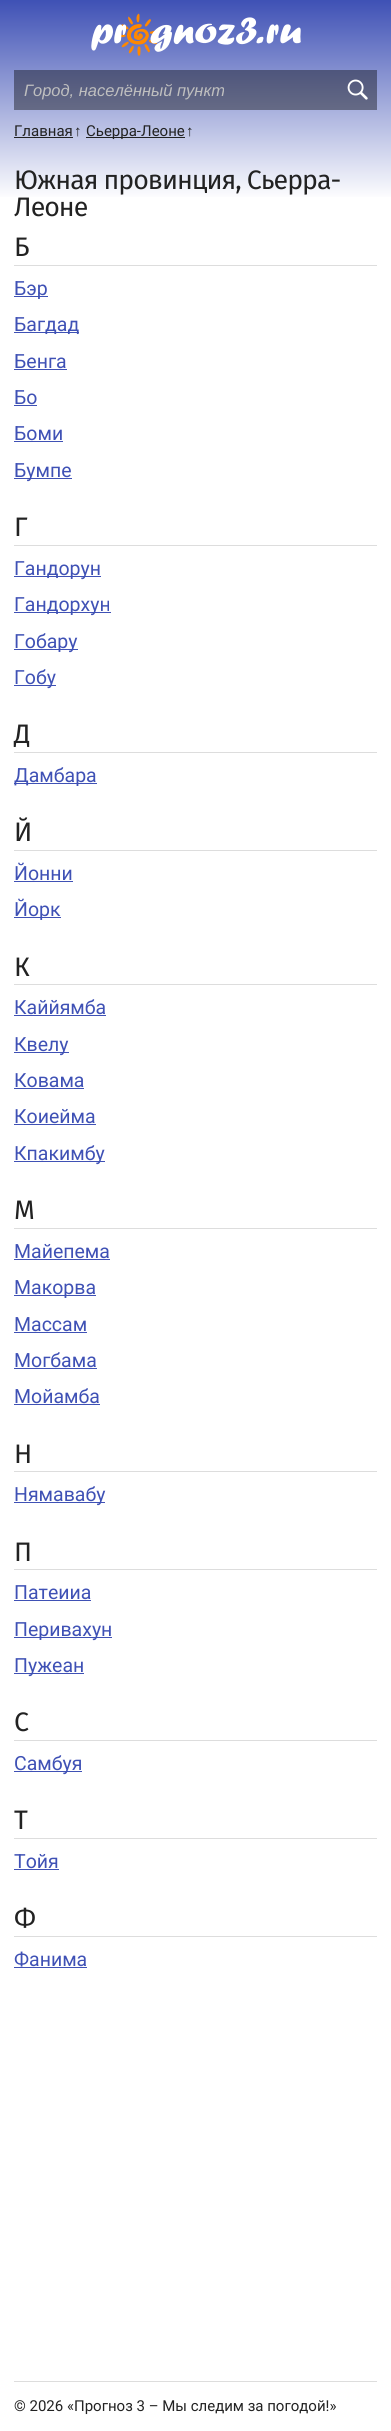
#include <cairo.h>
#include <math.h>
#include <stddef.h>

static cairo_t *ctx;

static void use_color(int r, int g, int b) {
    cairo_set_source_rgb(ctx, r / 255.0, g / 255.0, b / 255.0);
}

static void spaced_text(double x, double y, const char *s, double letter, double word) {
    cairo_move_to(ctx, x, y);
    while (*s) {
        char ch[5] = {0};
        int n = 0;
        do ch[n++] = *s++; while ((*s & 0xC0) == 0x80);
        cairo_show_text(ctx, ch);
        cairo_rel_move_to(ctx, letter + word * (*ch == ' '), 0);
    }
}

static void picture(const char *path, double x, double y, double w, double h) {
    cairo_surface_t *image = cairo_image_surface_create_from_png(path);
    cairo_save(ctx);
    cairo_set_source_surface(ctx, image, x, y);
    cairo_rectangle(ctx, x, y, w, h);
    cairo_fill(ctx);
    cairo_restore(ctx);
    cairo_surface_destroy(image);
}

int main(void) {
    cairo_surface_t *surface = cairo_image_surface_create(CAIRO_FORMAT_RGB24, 391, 2431);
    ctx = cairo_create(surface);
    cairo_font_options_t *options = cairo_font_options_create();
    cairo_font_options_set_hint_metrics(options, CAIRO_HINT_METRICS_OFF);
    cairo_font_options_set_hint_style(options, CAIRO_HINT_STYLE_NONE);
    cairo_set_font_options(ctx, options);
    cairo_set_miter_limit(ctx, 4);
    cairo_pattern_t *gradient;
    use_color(255, 255, 255);
    cairo_paint(ctx);
    gradient = cairo_pattern_create_linear(196, 200, 196, 0);
    cairo_pattern_add_color_stop_rgba(gradient, 0, 1, 1, 1, 1);
    cairo_pattern_add_color_stop_rgba(gradient, 1, 0.247, 0.318, 0.71, 1);
    cairo_set_source(ctx, gradient);
    cairo_pattern_destroy(gradient);
    cairo_rectangle(ctx, 0, 0, 391, 197);
    cairo_fill(ctx);
    gradient = cairo_pattern_create_linear(196, 200, 196, 0);
    cairo_pattern_add_color_stop_rgba(gradient, 0, 0.6, 0.6, 0.6, 1);
    cairo_pattern_add_color_stop_rgba(gradient, 1, 0.149, 0.192, 0.427, 1);
    cairo_set_source(ctx, gradient);
    cairo_pattern_destroy(gradient);
    cairo_rectangle(ctx, 14, 70, 363, 40);
    cairo_fill(ctx);
    picture("img1.png", 121, 13, 37, 43);
    picture("img2.png", 91, 17, 210, 35);
    cairo_select_font_face(ctx, "Liberation Sans", CAIRO_FONT_SLANT_ITALIC, CAIRO_FONT_WEIGHT_NORMAL);
    cairo_set_font_size(ctx, 16.5);
    use_color(191, 191, 191);
    cairo_move_to(ctx, 24, 96);
    cairo_show_text(ctx, "Город, населённый пункт");
    picture("img3.png", 347, 79, 21, 21);
    cairo_select_font_face(ctx, "Roboto", CAIRO_FONT_SLANT_NORMAL, CAIRO_FONT_WEIGHT_NORMAL);
    cairo_set_font_size(ctx, 15);
    use_color(34, 34, 34);
    cairo_move_to(ctx, 14, 136);
    cairo_show_text(ctx, "Главная");
    cairo_rectangle(ctx, 14, 137, 59, 1);
    cairo_fill(ctx);
    cairo_select_font_face(ctx, "Liberation Sans", CAIRO_FONT_SLANT_NORMAL, CAIRO_FONT_WEIGHT_NORMAL);
    cairo_move_to(ctx, 74, 136);
    cairo_show_text(ctx, "↑");
    cairo_rectangle(ctx, 86, 137, 99, 1);
    cairo_fill(ctx);
    cairo_select_font_face(ctx, "Roboto", CAIRO_FONT_SLANT_NORMAL, CAIRO_FONT_WEIGHT_NORMAL);
    cairo_move_to(ctx, 86, 136);
    cairo_show_text(ctx, "Сьерра-Леоне");
    cairo_select_font_face(ctx, "Liberation Sans", CAIRO_FONT_SLANT_NORMAL, CAIRO_FONT_WEIGHT_NORMAL);
    cairo_move_to(ctx, 186, 136);
    cairo_show_text(ctx, "↑");
    cairo_select_font_face(ctx, "Fira Sans", CAIRO_FONT_SLANT_NORMAL, CAIRO_FONT_WEIGHT_NORMAL);
    cairo_set_font_size(ctx, 26.75);
    spaced_text(14, 189, "Южная провинция, Сьерра-", -1, 0);
    spaced_text(14, 216, "Леоне", -1, 0);
    use_color(221, 221, 221);
    cairo_rectangle(ctx, 14, 265, 363, 1);
    cairo_fill(ctx);
    use_color(34, 34, 34);
    spaced_text(14, 256, "Б", -1, 0);
    use_color(63, 81, 181);
    cairo_rectangle(ctx, 14, 296, 34, 1);
    cairo_fill(ctx);
    cairo_select_font_face(ctx, "Roboto", CAIRO_FONT_SLANT_NORMAL, CAIRO_FONT_WEIGHT_NORMAL);
    cairo_set_font_size(ctx, 19.5);
    cairo_move_to(ctx, 14, 295);
    cairo_show_text(ctx, "Бэр");
    cairo_rectangle(ctx, 14, 332, 65, 1);
    cairo_fill(ctx);
    cairo_move_to(ctx, 14, 331);
    cairo_show_text(ctx, "Багдад");
    cairo_move_to(ctx, 14, 368);
    cairo_show_text(ctx, "Бенга");
    cairo_rectangle(ctx, 14, 369, 53, 1);
    cairo_fill(ctx);
    cairo_move_to(ctx, 14, 404);
    cairo_show_text(ctx, "Бо");
    cairo_rectangle(ctx, 14, 405, 23, 1);
    cairo_fill(ctx);
    cairo_move_to(ctx, 14, 440);
    cairo_show_text(ctx, "Боми");
    cairo_rectangle(ctx, 14, 441, 49, 1);
    cairo_fill(ctx);
    cairo_rectangle(ctx, 14, 478, 58, 1);
    cairo_fill(ctx);
    cairo_move_to(ctx, 14, 477);
    cairo_show_text(ctx, "Бумпе");
    use_color(221, 221, 221);
    cairo_rectangle(ctx, 14, 545, 363, 1);
    cairo_fill(ctx);
    cairo_select_font_face(ctx, "Fira Sans", CAIRO_FONT_SLANT_NORMAL, CAIRO_FONT_WEIGHT_NORMAL);
    cairo_set_font_size(ctx, 26.75);
    use_color(34, 34, 34);
    spaced_text(14, 536, "Г", -1, 0);
    use_color(63, 81, 181);
    cairo_rectangle(ctx, 14, 576, 87, 1);
    cairo_fill(ctx);
    cairo_select_font_face(ctx, "Roboto", CAIRO_FONT_SLANT_NORMAL, CAIRO_FONT_WEIGHT_NORMAL);
    cairo_set_font_size(ctx, 19.5);
    cairo_move_to(ctx, 14, 575);
    cairo_show_text(ctx, "Гандорун");
    cairo_rectangle(ctx, 14, 612, 97, 1);
    cairo_fill(ctx);
    cairo_move_to(ctx, 14, 611);
    cairo_show_text(ctx, "Гандорхун");
    cairo_rectangle(ctx, 14, 649, 64, 1);
    cairo_fill(ctx);
    cairo_move_to(ctx, 14, 648);
    cairo_show_text(ctx, "Гобару");
    cairo_rectangle(ctx, 14, 685, 42, 1);
    cairo_fill(ctx);
    cairo_move_to(ctx, 14, 684);
    cairo_show_text(ctx, "Гобу");
    use_color(221, 221, 221);
    cairo_rectangle(ctx, 14, 752, 363, 1);
    cairo_fill(ctx);
    cairo_select_font_face(ctx, "Fira Sans", CAIRO_FONT_SLANT_NORMAL, CAIRO_FONT_WEIGHT_NORMAL);
    cairo_set_font_size(ctx, 26.75);
    use_color(34, 34, 34);
    spaced_text(14, 743, "Д", -1, 0);
    use_color(63, 81, 181);
    cairo_rectangle(ctx, 14, 783, 83, 1);
    cairo_fill(ctx);
    cairo_select_font_face(ctx, "Roboto", CAIRO_FONT_SLANT_NORMAL, CAIRO_FONT_WEIGHT_NORMAL);
    cairo_set_font_size(ctx, 19.5);
    cairo_move_to(ctx, 14, 782);
    cairo_show_text(ctx, "Дамбара");
    use_color(221, 221, 221);
    cairo_rectangle(ctx, 14, 850, 363, 1);
    cairo_fill(ctx);
    cairo_select_font_face(ctx, "Fira Sans", CAIRO_FONT_SLANT_NORMAL, CAIRO_FONT_WEIGHT_NORMAL);
    cairo_set_font_size(ctx, 26.75);
    use_color(34, 34, 34);
    spaced_text(14, 841, "Й", -1, 0);
    cairo_select_font_face(ctx, "Roboto", CAIRO_FONT_SLANT_NORMAL, CAIRO_FONT_WEIGHT_NORMAL);
    cairo_set_font_size(ctx, 19.5);
    use_color(63, 81, 181);
    cairo_move_to(ctx, 14, 880);
    cairo_show_text(ctx, "Йонни");
    cairo_rectangle(ctx, 14, 881, 59, 1);
    cairo_fill(ctx);
    cairo_rectangle(ctx, 14, 917, 47, 1);
    cairo_fill(ctx);
    cairo_move_to(ctx, 14, 916);
    cairo_show_text(ctx, "Йорк");
    use_color(221, 221, 221);
    cairo_rectangle(ctx, 14, 984, 363, 1);
    cairo_fill(ctx);
    cairo_select_font_face(ctx, "Fira Sans", CAIRO_FONT_SLANT_NORMAL, CAIRO_FONT_WEIGHT_NORMAL);
    cairo_set_font_size(ctx, 26.75);
    use_color(34, 34, 34);
    spaced_text(14, 976, "К", -1, 0);
    cairo_select_font_face(ctx, "Roboto", CAIRO_FONT_SLANT_NORMAL, CAIRO_FONT_WEIGHT_NORMAL);
    cairo_set_font_size(ctx, 19.5);
    use_color(63, 81, 181);
    cairo_move_to(ctx, 14, 1014);
    cairo_show_text(ctx, "Каййямба");
    cairo_rectangle(ctx, 14, 1015, 92, 1);
    cairo_fill(ctx);
    cairo_rectangle(ctx, 14, 1052, 55, 1);
    cairo_fill(ctx);
    cairo_move_to(ctx, 14, 1051);
    cairo_show_text(ctx, "Квелу");
    cairo_move_to(ctx, 14, 1087);
    cairo_show_text(ctx, "Ковама");
    cairo_rectangle(ctx, 14, 1088, 70, 1);
    cairo_fill(ctx);
    cairo_move_to(ctx, 14, 1123);
    cairo_show_text(ctx, "Коиейма");
    cairo_rectangle(ctx, 14, 1124, 82, 1);
    cairo_fill(ctx);
    cairo_rectangle(ctx, 14, 1161, 91, 1);
    cairo_fill(ctx);
    cairo_move_to(ctx, 14, 1160);
    cairo_show_text(ctx, "Кпакимбу");
    use_color(221, 221, 221);
    cairo_rectangle(ctx, 14, 1228, 363, 1);
    cairo_fill(ctx);
    cairo_select_font_face(ctx, "Fira Sans", CAIRO_FONT_SLANT_NORMAL, CAIRO_FONT_WEIGHT_NORMAL);
    cairo_set_font_size(ctx, 26.75);
    use_color(34, 34, 34);
    spaced_text(14, 1219, "М", -1, 0);
    cairo_select_font_face(ctx, "Roboto", CAIRO_FONT_SLANT_NORMAL, CAIRO_FONT_WEIGHT_NORMAL);
    cairo_set_font_size(ctx, 19.5);
    use_color(63, 81, 181);
    cairo_move_to(ctx, 14, 1258);
    cairo_show_text(ctx, "Майепема");
    cairo_rectangle(ctx, 14, 1259, 96, 1);
    cairo_fill(ctx);
    cairo_rectangle(ctx, 14, 1295, 82, 1);
    cairo_fill(ctx);
    cairo_move_to(ctx, 14, 1294);
    cairo_show_text(ctx, "Макорва");
    cairo_move_to(ctx, 14, 1331);
    cairo_show_text(ctx, "Массам");
    cairo_rectangle(ctx, 14, 1332, 73, 1);
    cairo_fill(ctx);
    cairo_move_to(ctx, 14, 1367);
    cairo_show_text(ctx, "Могбама");
    cairo_rectangle(ctx, 14, 1368, 83, 1);
    cairo_fill(ctx);
    cairo_move_to(ctx, 14, 1403);
    cairo_show_text(ctx, "Мойамба");
    cairo_rectangle(ctx, 14, 1404, 86, 1);
    cairo_fill(ctx);
    use_color(221, 221, 221);
    cairo_rectangle(ctx, 14, 1471, 363, 1);
    cairo_fill(ctx);
    cairo_select_font_face(ctx, "Fira Sans", CAIRO_FONT_SLANT_NORMAL, CAIRO_FONT_WEIGHT_NORMAL);
    cairo_set_font_size(ctx, 26.75);
    use_color(34, 34, 34);
    spaced_text(14, 1463, "Н", -1, 0);
    use_color(63, 81, 181);
    cairo_rectangle(ctx, 14, 1502, 91, 1);
    cairo_fill(ctx);
    cairo_select_font_face(ctx, "Roboto", CAIRO_FONT_SLANT_NORMAL, CAIRO_FONT_WEIGHT_NORMAL);
    cairo_set_font_size(ctx, 19.5);
    cairo_move_to(ctx, 14, 1501);
    cairo_show_text(ctx, "Нямавабу");
    use_color(221, 221, 221);
    cairo_rectangle(ctx, 14, 1569, 363, 1);
    cairo_fill(ctx);
    cairo_select_font_face(ctx, "Fira Sans", CAIRO_FONT_SLANT_NORMAL, CAIRO_FONT_WEIGHT_NORMAL);
    cairo_set_font_size(ctx, 26.75);
    use_color(34, 34, 34);
    spaced_text(14, 1561, "П", -1, 0);
    cairo_select_font_face(ctx, "Roboto", CAIRO_FONT_SLANT_NORMAL, CAIRO_FONT_WEIGHT_NORMAL);
    cairo_set_font_size(ctx, 19.5);
    use_color(63, 81, 181);
    cairo_move_to(ctx, 14, 1599);
    cairo_show_text(ctx, "Патеииа");
    cairo_rectangle(ctx, 14, 1600, 77, 1);
    cairo_fill(ctx);
    cairo_rectangle(ctx, 14, 1637, 98, 1);
    cairo_fill(ctx);
    cairo_move_to(ctx, 14, 1636);
    cairo_show_text(ctx, "Перивахун");
    cairo_rectangle(ctx, 14, 1673, 70, 1);
    cairo_fill(ctx);
    cairo_move_to(ctx, 14, 1672);
    cairo_show_text(ctx, "Пужеан");
    use_color(221, 221, 221);
    cairo_rectangle(ctx, 14, 1740, 363, 1);
    cairo_fill(ctx);
    cairo_select_font_face(ctx, "Fira Sans", CAIRO_FONT_SLANT_NORMAL, CAIRO_FONT_WEIGHT_NORMAL);
    cairo_set_font_size(ctx, 26.75);
    use_color(34, 34, 34);
    spaced_text(14, 1731, "С", -1, 0);
    use_color(63, 81, 181);
    cairo_rectangle(ctx, 14, 1771, 68, 1);
    cairo_fill(ctx);
    cairo_select_font_face(ctx, "Roboto", CAIRO_FONT_SLANT_NORMAL, CAIRO_FONT_WEIGHT_NORMAL);
    cairo_set_font_size(ctx, 19.5);
    cairo_move_to(ctx, 14, 1770);
    cairo_show_text(ctx, "Самбуя");
    use_color(221, 221, 221);
    cairo_rectangle(ctx, 14, 1838, 363, 1);
    cairo_fill(ctx);
    cairo_select_font_face(ctx, "Fira Sans", CAIRO_FONT_SLANT_NORMAL, CAIRO_FONT_WEIGHT_NORMAL);
    cairo_set_font_size(ctx, 26.75);
    use_color(34, 34, 34);
    spaced_text(14, 1829, "Т", -1, 0);
    cairo_select_font_face(ctx, "Roboto", CAIRO_FONT_SLANT_NORMAL, CAIRO_FONT_WEIGHT_NORMAL);
    cairo_set_font_size(ctx, 19.5);
    use_color(63, 81, 181);
    cairo_move_to(ctx, 14, 1868);
    cairo_show_text(ctx, "Тойя");
    cairo_rectangle(ctx, 14, 1869, 45, 1);
    cairo_fill(ctx);
    use_color(221, 221, 221);
    cairo_rectangle(ctx, 14, 1936, 363, 1);
    cairo_fill(ctx);
    cairo_select_font_face(ctx, "Fira Sans", CAIRO_FONT_SLANT_NORMAL, CAIRO_FONT_WEIGHT_NORMAL);
    cairo_set_font_size(ctx, 26.75);
    use_color(34, 34, 34);
    spaced_text(14, 1927, "Ф", -1, 0);
    cairo_select_font_face(ctx, "Roboto", CAIRO_FONT_SLANT_NORMAL, CAIRO_FONT_WEIGHT_NORMAL);
    cairo_set_font_size(ctx, 19.5);
    use_color(63, 81, 181);
    cairo_move_to(ctx, 14, 1966);
    cairo_show_text(ctx, "Фанима");
    cairo_rectangle(ctx, 14, 1967, 73, 1);
    cairo_fill(ctx);
    use_color(221, 221, 221);
    cairo_rectangle(ctx, 14, 2381, 363, 1);
    cairo_fill(ctx);
    cairo_set_font_size(ctx, 15);
    use_color(34, 34, 34);
    cairo_move_to(ctx, 14, 2411);
    cairo_show_text(ctx, "© 2026 «Прогноз 3 – Мы следим за погодой!»");
    cairo_surface_write_to_png(surface, "result.png");
    cairo_font_options_destroy(options);
    cairo_destroy(ctx);
    cairo_surface_destroy(surface);
    return 0;
}
